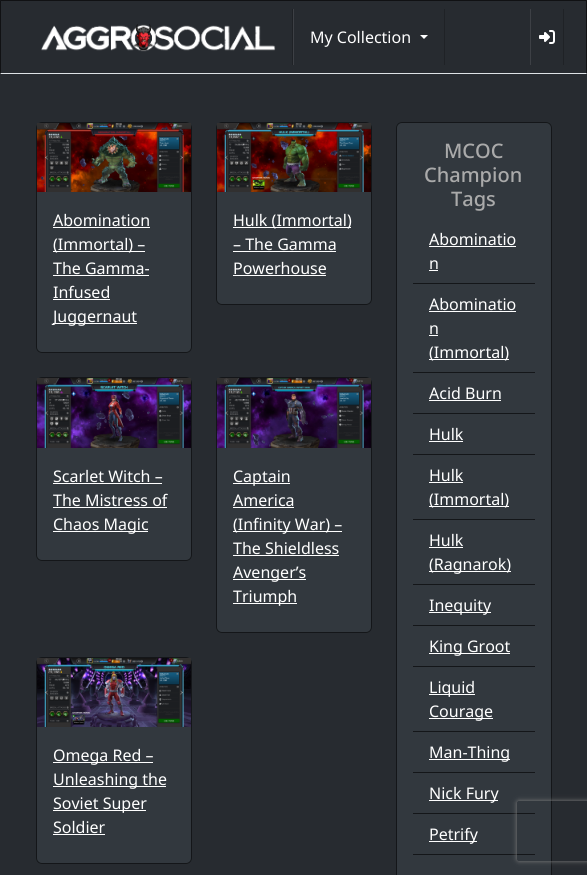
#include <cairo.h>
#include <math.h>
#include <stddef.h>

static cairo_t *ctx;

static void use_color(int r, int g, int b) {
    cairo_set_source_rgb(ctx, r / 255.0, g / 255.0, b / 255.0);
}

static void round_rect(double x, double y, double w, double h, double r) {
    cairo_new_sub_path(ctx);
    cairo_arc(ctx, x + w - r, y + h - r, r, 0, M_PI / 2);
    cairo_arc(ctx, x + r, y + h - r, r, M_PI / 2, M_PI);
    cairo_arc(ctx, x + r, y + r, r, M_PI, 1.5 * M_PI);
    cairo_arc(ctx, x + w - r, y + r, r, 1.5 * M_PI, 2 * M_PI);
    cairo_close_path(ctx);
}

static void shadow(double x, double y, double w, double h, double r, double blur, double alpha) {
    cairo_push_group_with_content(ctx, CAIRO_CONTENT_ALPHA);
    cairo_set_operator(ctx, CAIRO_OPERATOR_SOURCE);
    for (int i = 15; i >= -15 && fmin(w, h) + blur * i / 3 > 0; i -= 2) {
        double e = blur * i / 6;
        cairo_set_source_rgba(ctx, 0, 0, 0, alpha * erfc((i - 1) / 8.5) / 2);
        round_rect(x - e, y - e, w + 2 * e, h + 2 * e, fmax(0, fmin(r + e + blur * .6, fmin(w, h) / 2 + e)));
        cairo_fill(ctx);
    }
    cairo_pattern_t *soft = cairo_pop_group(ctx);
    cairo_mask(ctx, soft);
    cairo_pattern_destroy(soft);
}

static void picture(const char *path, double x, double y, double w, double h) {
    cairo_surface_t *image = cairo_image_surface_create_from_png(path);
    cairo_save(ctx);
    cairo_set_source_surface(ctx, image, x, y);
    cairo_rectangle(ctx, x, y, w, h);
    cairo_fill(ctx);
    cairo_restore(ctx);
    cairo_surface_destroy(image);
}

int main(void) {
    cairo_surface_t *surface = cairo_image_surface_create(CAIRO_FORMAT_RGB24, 587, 875);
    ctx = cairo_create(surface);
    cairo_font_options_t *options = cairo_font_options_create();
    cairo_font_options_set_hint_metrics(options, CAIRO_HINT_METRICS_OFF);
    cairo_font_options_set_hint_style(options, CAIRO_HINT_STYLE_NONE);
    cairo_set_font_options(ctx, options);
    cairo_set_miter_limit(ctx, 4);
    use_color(39, 43, 48);
    cairo_paint(ctx);
    use_color(16, 17, 19);
    cairo_new_path(ctx);
    cairo_move_to(ctx, 0, 0);
    cairo_line_to(ctx, 587, 0);
    cairo_line_to(ctx, 586, 1);
    cairo_line_to(ctx, 1, 1);
    cairo_close_path(ctx);
    cairo_fill(ctx);
    cairo_set_source_rgba(ctx, 0, 0, 0, 0.6);
    cairo_new_path(ctx);
    cairo_move_to(ctx, 587, 0);
    cairo_line_to(ctx, 587, 74);
    cairo_line_to(ctx, 586, 73);
    cairo_line_to(ctx, 586, 1);
    cairo_close_path(ctx);
    cairo_fill(ctx);
    use_color(222, 226, 230);
    cairo_new_path(ctx);
    cairo_move_to(ctx, 587, 74);
    cairo_line_to(ctx, 0, 74);
    cairo_line_to(ctx, 1, 73);
    cairo_line_to(ctx, 586, 73);
    cairo_close_path(ctx);
    cairo_fill(ctx);
    cairo_set_source_rgba(ctx, 0, 0, 0, 0.6);
    cairo_new_path(ctx);
    cairo_move_to(ctx, 0, 74);
    cairo_line_to(ctx, 0, 0);
    cairo_line_to(ctx, 1, 1);
    cairo_line_to(ctx, 1, 73);
    cairo_close_path(ctx);
    cairo_fill(ctx);
    use_color(31, 34, 38);
    cairo_rectangle(ctx, 292, 9, 1, 56);
    cairo_fill(ctx);
    picture("img1.png", 41, 24, 235, 28);
    cairo_rectangle(ctx, 444, 9, 1, 56);
    cairo_fill(ctx);
    use_color(61, 64, 69);
    cairo_rectangle(ctx, 293, 9, 1, 56);
    cairo_fill(ctx);
    cairo_select_font_face(ctx, "Noto Sans", CAIRO_FONT_SLANT_NORMAL, CAIRO_FONT_WEIGHT_NORMAL);
    cairo_set_font_size(ctx, 16);
    use_color(255, 255, 255);
    cairo_move_to(ctx, 310, 43);
    cairo_show_text(ctx, "My Collection");
    cairo_new_path(ctx);
    cairo_move_to(ctx, 420, 35);
    cairo_line_to(ctx, 428, 35);
    cairo_line_to(ctx, 424, 39);
    cairo_close_path(ctx);
    cairo_fill(ctx);
    use_color(31, 34, 38);
    cairo_rectangle(ctx, 563, 9, 1, 56);
    cairo_fill(ctx);
    use_color(61, 64, 69);
    cairo_rectangle(ctx, 530, 9, 1, 56);
    cairo_fill(ctx);
    picture("img2.png", 539, 30, 16, 14);
    use_color(50, 56, 62);
    round_rect(36, 122, 156, 231, 6);
    cairo_fill(ctx);
    round_rect(36.5, 122.5, 155, 230, 5.5);
    cairo_set_source_rgba(ctx, 0, 0, 0, 0.6);
    cairo_set_line_width(ctx, 1);
    cairo_stroke(ctx);
    picture("img3.png", 37, 123, 154, 69);
    use_color(255, 255, 255);
    cairo_move_to(ctx, 53, 226);
    cairo_show_text(ctx, "Abomination");
    cairo_rectangle(ctx, 53, 227, 97, 1);
    cairo_fill(ctx);
    cairo_rectangle(ctx, 53, 251, 92, 1);
    cairo_fill(ctx);
    cairo_move_to(ctx, 53, 250);
    cairo_show_text(ctx, "(Immortal) –");
    cairo_move_to(ctx, 53, 274);
    cairo_show_text(ctx, "The Gamma-");
    cairo_rectangle(ctx, 53, 275, 96, 1);
    cairo_fill(ctx);
    cairo_move_to(ctx, 53, 298);
    cairo_show_text(ctx, "Infused");
    cairo_rectangle(ctx, 53, 299, 57, 1);
    cairo_fill(ctx);
    cairo_rectangle(ctx, 53, 323, 84, 1);
    cairo_fill(ctx);
    cairo_move_to(ctx, 53, 322);
    cairo_show_text(ctx, "Juggernaut");
    use_color(50, 56, 62);
    round_rect(216, 122, 156, 183, 6);
    cairo_fill(ctx);
    round_rect(216.5, 122.5, 155, 182, 5.5);
    cairo_set_source_rgba(ctx, 0, 0, 0, 0.6);
    cairo_stroke(ctx);
    picture("img4.png", 217, 123, 154, 69);
    use_color(255, 255, 255);
    cairo_rectangle(ctx, 233, 227, 118, 1);
    cairo_fill(ctx);
    cairo_move_to(ctx, 233, 226);
    cairo_show_text(ctx, "Hulk (Immortal)");
    cairo_move_to(ctx, 233, 250);
    cairo_show_text(ctx, "– The Gamma");
    cairo_rectangle(ctx, 233, 251, 103, 1);
    cairo_fill(ctx);
    cairo_move_to(ctx, 233, 274);
    cairo_show_text(ctx, "Powerhouse");
    cairo_rectangle(ctx, 233, 275, 93, 1);
    cairo_fill(ctx);
    use_color(50, 56, 62);
    round_rect(36, 377, 156, 184, 6);
    cairo_fill(ctx);
    round_rect(36.5, 377.5, 155, 183, 5.5);
    cairo_set_source_rgba(ctx, 0, 0, 0, 0.6);
    cairo_stroke(ctx);
    picture("img5.png", 37, 378, 154, 70);
    use_color(255, 255, 255);
    cairo_move_to(ctx, 53, 482);
    cairo_show_text(ctx, "Scarlet Witch –");
    cairo_rectangle(ctx, 53, 483, 109, 1);
    cairo_fill(ctx);
    cairo_move_to(ctx, 53, 506);
    cairo_show_text(ctx, "The Mistress of");
    cairo_rectangle(ctx, 53, 507, 114, 1);
    cairo_fill(ctx);
    cairo_rectangle(ctx, 53, 531, 95, 1);
    cairo_fill(ctx);
    cairo_move_to(ctx, 53, 530);
    cairo_show_text(ctx, "Chaos Magic");
    use_color(50, 56, 62);
    round_rect(216, 377, 156, 256, 6);
    cairo_fill(ctx);
    round_rect(216.5, 377.5, 155, 255, 5.5);
    cairo_set_source_rgba(ctx, 0, 0, 0, 0.6);
    cairo_stroke(ctx);
    picture("img6.png", 217, 378, 154, 70);
    use_color(255, 255, 255);
    cairo_rectangle(ctx, 233, 483, 57, 1);
    cairo_fill(ctx);
    cairo_move_to(ctx, 233, 482);
    cairo_show_text(ctx, "Captain");
    cairo_move_to(ctx, 233, 506);
    cairo_show_text(ctx, "America");
    cairo_rectangle(ctx, 233, 507, 61, 1);
    cairo_fill(ctx);
    cairo_rectangle(ctx, 233, 531, 109, 1);
    cairo_fill(ctx);
    cairo_move_to(ctx, 233, 530);
    cairo_show_text(ctx, "(Infinity War) –");
    cairo_move_to(ctx, 233, 554);
    cairo_show_text(ctx, "The Shieldless");
    cairo_rectangle(ctx, 233, 555, 106, 1);
    cairo_fill(ctx);
    cairo_rectangle(ctx, 233, 579, 73, 1);
    cairo_fill(ctx);
    cairo_move_to(ctx, 233, 578);
    cairo_show_text(ctx, "Avenger’s");
    cairo_rectangle(ctx, 233, 603, 64, 1);
    cairo_fill(ctx);
    cairo_move_to(ctx, 233, 602);
    cairo_show_text(ctx, "Triumph");
    use_color(50, 56, 62);
    round_rect(36, 657, 156, 207, 6);
    cairo_fill(ctx);
    round_rect(36.5, 657.5, 155, 206, 5.5);
    cairo_set_source_rgba(ctx, 0, 0, 0, 0.6);
    cairo_stroke(ctx);
    picture("img7.png", 37, 658, 154, 69);
    use_color(255, 255, 255);
    cairo_rectangle(ctx, 53, 762, 100, 1);
    cairo_fill(ctx);
    cairo_move_to(ctx, 53, 761);
    cairo_show_text(ctx, "Omega Red –");
    cairo_rectangle(ctx, 53, 786, 113, 1);
    cairo_fill(ctx);
    cairo_move_to(ctx, 53, 785);
    cairo_show_text(ctx, "Unleashing the");
    cairo_rectangle(ctx, 53, 810, 93, 1);
    cairo_fill(ctx);
    cairo_move_to(ctx, 53, 809);
    cairo_show_text(ctx, "Soviet Super");
    cairo_move_to(ctx, 53, 833);
    cairo_show_text(ctx, "Soldier");
    cairo_rectangle(ctx, 53, 834, 52, 1);
    cairo_fill(ctx);
    use_color(50, 56, 62);
    round_rect(396, 122, 156, 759, 6);
    cairo_fill(ctx);
    round_rect(396.5, 122.5, 155, 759, 5.5);
    cairo_set_source_rgba(ctx, 0, 0, 0, 0.6);
    cairo_stroke(ctx);
    cairo_select_font_face(ctx, "Noto Sans Medium", CAIRO_FONT_SLANT_NORMAL, CAIRO_FONT_WEIGHT_NORMAL);
    cairo_set_font_size(ctx, 20);
    use_color(170, 170, 170);
    cairo_move_to(ctx, 444, 158);
    cairo_show_text(ctx, "MCOC");
    cairo_move_to(ctx, 424, 182);
    cairo_show_text(ctx, "Champion");
    cairo_move_to(ctx, 451, 206);
    cairo_show_text(ctx, "Tags");
    use_color(20, 22, 25);
    cairo_rectangle(ctx, 413, 283, 122, 1);
    cairo_fill(ctx);
    cairo_select_font_face(ctx, "Noto Sans", CAIRO_FONT_SLANT_NORMAL, CAIRO_FONT_WEIGHT_NORMAL);
    cairo_set_font_size(ctx, 16);
    use_color(255, 255, 255);
    cairo_move_to(ctx, 429, 245);
    cairo_show_text(ctx, "Abominatio");
    cairo_rectangle(ctx, 429, 246, 87, 1);
    cairo_fill(ctx);
    cairo_move_to(ctx, 429, 269);
    cairo_show_text(ctx, "n");
    cairo_rectangle(ctx, 429, 270, 9, 1);
    cairo_fill(ctx);
    use_color(20, 22, 25);
    cairo_rectangle(ctx, 413, 372, 122, 1);
    cairo_fill(ctx);
    use_color(255, 255, 255);
    cairo_move_to(ctx, 429, 310);
    cairo_show_text(ctx, "Abominatio");
    cairo_rectangle(ctx, 429, 311, 87, 1);
    cairo_fill(ctx);
    cairo_move_to(ctx, 429, 334);
    cairo_show_text(ctx, "n");
    cairo_rectangle(ctx, 429, 335, 9, 1);
    cairo_fill(ctx);
    cairo_rectangle(ctx, 429, 359, 80, 1);
    cairo_fill(ctx);
    cairo_move_to(ctx, 429, 358);
    cairo_show_text(ctx, "(Immortal)");
    use_color(20, 22, 25);
    cairo_rectangle(ctx, 413, 413, 122, 1);
    cairo_fill(ctx);
    use_color(255, 255, 255);
    cairo_move_to(ctx, 429, 399);
    cairo_show_text(ctx, "Acid Burn");
    cairo_rectangle(ctx, 429, 400, 72, 1);
    cairo_fill(ctx);
    use_color(20, 22, 25);
    cairo_rectangle(ctx, 413, 454, 122, 1);
    cairo_fill(ctx);
    use_color(255, 255, 255);
    cairo_move_to(ctx, 429, 440);
    cairo_show_text(ctx, "Hulk");
    cairo_rectangle(ctx, 429, 441, 34, 1);
    cairo_fill(ctx);
    use_color(20, 22, 25);
    cairo_rectangle(ctx, 413, 519, 122, 1);
    cairo_fill(ctx);
    use_color(255, 255, 255);
    cairo_move_to(ctx, 429, 481);
    cairo_show_text(ctx, "Hulk");
    cairo_rectangle(ctx, 429, 482, 34, 1);
    cairo_fill(ctx);
    cairo_rectangle(ctx, 429, 506, 80, 1);
    cairo_fill(ctx);
    cairo_move_to(ctx, 429, 505);
    cairo_show_text(ctx, "(Immortal)");
    use_color(20, 22, 25);
    cairo_rectangle(ctx, 413, 584, 122, 1);
    cairo_fill(ctx);
    use_color(255, 255, 255);
    cairo_move_to(ctx, 429, 546);
    cairo_show_text(ctx, "Hulk");
    cairo_rectangle(ctx, 429, 547, 34, 1);
    cairo_fill(ctx);
    cairo_rectangle(ctx, 429, 571, 82, 1);
    cairo_fill(ctx);
    cairo_move_to(ctx, 429, 570);
    cairo_show_text(ctx, "(Ragnarok)");
    use_color(20, 22, 25);
    cairo_rectangle(ctx, 413, 625, 122, 1);
    cairo_fill(ctx);
    use_color(255, 255, 255);
    cairo_rectangle(ctx, 429, 612, 62, 1);
    cairo_fill(ctx);
    cairo_move_to(ctx, 429, 611);
    cairo_show_text(ctx, "Inequity");
    use_color(20, 22, 25);
    cairo_rectangle(ctx, 413, 666, 122, 1);
    cairo_fill(ctx);
    use_color(255, 255, 255);
    cairo_rectangle(ctx, 429, 653, 81, 1);
    cairo_fill(ctx);
    cairo_move_to(ctx, 429, 652);
    cairo_show_text(ctx, "King Groot");
    use_color(20, 22, 25);
    cairo_rectangle(ctx, 413, 731, 122, 1);
    cairo_fill(ctx);
    use_color(255, 255, 255);
    cairo_rectangle(ctx, 429, 694, 46, 1);
    cairo_fill(ctx);
    cairo_move_to(ctx, 429, 693);
    cairo_show_text(ctx, "Liquid");
    cairo_rectangle(ctx, 429, 718, 64, 1);
    cairo_fill(ctx);
    cairo_move_to(ctx, 429, 717);
    cairo_show_text(ctx, "Courage");
    use_color(20, 22, 25);
    cairo_rectangle(ctx, 413, 772, 122, 1);
    cairo_fill(ctx);
    use_color(255, 255, 255);
    cairo_rectangle(ctx, 429, 759, 81, 1);
    cairo_fill(ctx);
    cairo_move_to(ctx, 429, 758);
    cairo_show_text(ctx, "Man-Thing");
    use_color(20, 22, 25);
    cairo_rectangle(ctx, 413, 813, 122, 1);
    cairo_fill(ctx);
    use_color(255, 255, 255);
    cairo_rectangle(ctx, 429, 800, 69, 1);
    cairo_fill(ctx);
    cairo_move_to(ctx, 429, 799);
    cairo_show_text(ctx, "Nick Fury");
    use_color(20, 22, 25);
    cairo_rectangle(ctx, 413, 854, 122, 1);
    cairo_fill(ctx);
    use_color(255, 255, 255);
    cairo_rectangle(ctx, 429, 841, 48, 1);
    cairo_fill(ctx);
    cairo_move_to(ctx, 429, 840);
    cairo_show_text(ctx, "Petrify");
    cairo_save(ctx);
    cairo_set_fill_rule(ctx, CAIRO_FILL_RULE_EVEN_ODD);
    cairo_new_path(ctx);
    cairo_move_to(ctx, 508, 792);
    cairo_line_to(ctx, 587, 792);
    cairo_line_to(ctx, 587, 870);
    cairo_line_to(ctx, 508, 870);
    cairo_close_path(ctx);
    cairo_move_to(ctx, 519, 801);
    cairo_line_to(ctx, 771, 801);
    cairo_curve_to(ctx, 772, 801, 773, 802, 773, 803);
    cairo_line_to(ctx, 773, 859);
    cairo_curve_to(ctx, 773, 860, 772, 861, 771, 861);
    cairo_line_to(ctx, 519, 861);
    cairo_curve_to(ctx, 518, 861, 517, 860, 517, 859);
    cairo_line_to(ctx, 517, 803);
    cairo_curve_to(ctx, 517, 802, 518, 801, 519, 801);
    cairo_close_path(ctx);
    cairo_clip(ctx);
    use_color(128, 128, 128);
    shadow(517, 801, 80, 60, 2, 2.5, 1);
    cairo_restore(ctx);
    cairo_surface_write_to_png(surface, "result.png");
    cairo_font_options_destroy(options);
    cairo_destroy(ctx);
    cairo_surface_destroy(surface);
    return 0;
}
